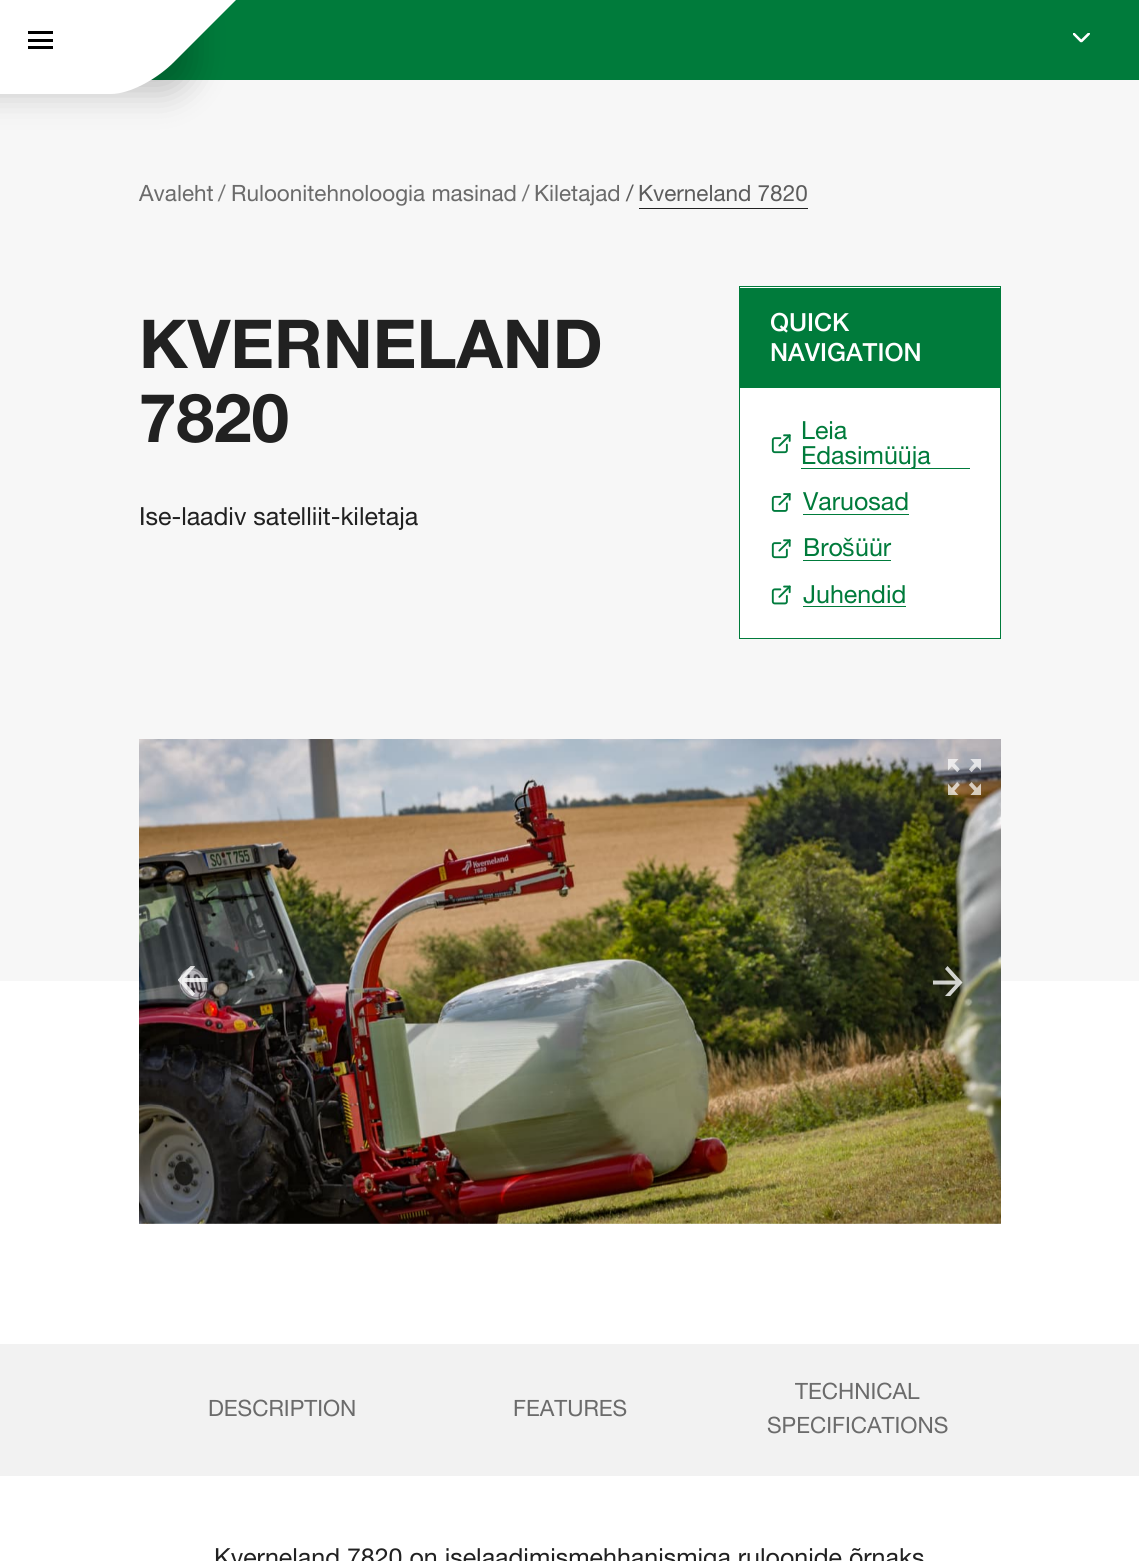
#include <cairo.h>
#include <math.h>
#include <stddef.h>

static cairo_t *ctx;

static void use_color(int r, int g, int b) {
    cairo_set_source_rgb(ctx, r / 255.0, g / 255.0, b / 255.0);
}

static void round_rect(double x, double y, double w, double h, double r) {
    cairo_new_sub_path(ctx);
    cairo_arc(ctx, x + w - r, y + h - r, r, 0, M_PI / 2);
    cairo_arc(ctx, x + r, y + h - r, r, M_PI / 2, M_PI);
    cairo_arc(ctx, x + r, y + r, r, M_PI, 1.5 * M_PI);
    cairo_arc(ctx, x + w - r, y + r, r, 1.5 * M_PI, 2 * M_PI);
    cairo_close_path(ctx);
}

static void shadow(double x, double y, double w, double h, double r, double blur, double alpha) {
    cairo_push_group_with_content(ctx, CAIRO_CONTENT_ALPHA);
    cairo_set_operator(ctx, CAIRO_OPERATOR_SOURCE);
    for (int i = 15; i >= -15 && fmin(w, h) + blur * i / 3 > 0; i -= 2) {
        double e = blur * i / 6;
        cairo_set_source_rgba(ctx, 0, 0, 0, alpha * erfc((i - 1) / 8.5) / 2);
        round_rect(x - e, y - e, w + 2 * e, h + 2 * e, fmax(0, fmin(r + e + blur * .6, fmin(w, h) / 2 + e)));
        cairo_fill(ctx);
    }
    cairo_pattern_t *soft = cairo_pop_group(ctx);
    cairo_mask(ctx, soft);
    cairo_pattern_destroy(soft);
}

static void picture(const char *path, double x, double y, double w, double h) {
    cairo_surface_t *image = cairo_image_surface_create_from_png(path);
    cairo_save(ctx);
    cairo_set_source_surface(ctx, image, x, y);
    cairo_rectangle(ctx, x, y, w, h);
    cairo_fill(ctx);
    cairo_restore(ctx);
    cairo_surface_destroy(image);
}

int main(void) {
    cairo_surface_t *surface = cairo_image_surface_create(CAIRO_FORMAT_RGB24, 1139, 1561);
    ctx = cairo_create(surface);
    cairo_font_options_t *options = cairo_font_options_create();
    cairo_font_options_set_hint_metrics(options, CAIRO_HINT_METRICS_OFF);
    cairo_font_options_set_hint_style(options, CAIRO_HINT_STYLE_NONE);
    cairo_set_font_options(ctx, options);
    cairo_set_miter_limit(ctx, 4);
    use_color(255, 255, 255);
    cairo_paint(ctx);
    use_color(0, 123, 59);
    cairo_rectangle(ctx, 151, 0, 988, 80);
    cairo_fill(ctx);
    use_color(247, 247, 247);
    cairo_rectangle(ctx, 0, 80, 1139, 901);
    cairo_fill(ctx);
    use_color(0, 0, 0);
    shadow(-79, -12, 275, 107, 31, 16, 0.2);
    use_color(255, 255, 255);
    cairo_new_path(ctx);
    cairo_move_to(ctx, -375, -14);
    cairo_line_to(ctx, 250, -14);
    cairo_line_to(ctx, 174, 62);
    cairo_curve_to(ctx, 156, 80, 129, 94, 111, 94);
    cairo_line_to(ctx, -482, 94);
    cairo_close_path(ctx);
    cairo_fill(ctx);
    use_color(0, 0, 0);
    cairo_rectangle(ctx, 28, 39, 25, 3);
    cairo_fill(ctx);
    cairo_rectangle(ctx, 28, 31, 25, 3);
    cairo_fill(ctx);
    cairo_rectangle(ctx, 28, 46, 25, 3);
    cairo_fill(ctx);
    picture("img1.png", 1073, 33, 17, 10);
    cairo_select_font_face(ctx, "Helvetica Neue", CAIRO_FONT_SLANT_NORMAL, CAIRO_FONT_WEIGHT_NORMAL);
    cairo_set_font_size(ctx, 22.5);
    use_color(107, 107, 107);
    cairo_move_to(ctx, 139, 201);
    cairo_show_text(ctx, "Avaleht");
    use_color(117, 117, 117);
    cairo_move_to(ctx, 218, 201);
    cairo_show_text(ctx, "/");
    use_color(107, 107, 107);
    cairo_move_to(ctx, 231, 201);
    cairo_show_text(ctx, "Ruloonitehnoloogia masinad");
    use_color(117, 117, 117);
    cairo_move_to(ctx, 522, 201);
    cairo_show_text(ctx, "/");
    use_color(107, 107, 107);
    cairo_move_to(ctx, 534, 201);
    cairo_show_text(ctx, "Kiletajad");
    use_color(92, 92, 92);
    cairo_move_to(ctx, 626, 201);
    cairo_show_text(ctx, "/");
    cairo_move_to(ctx, 638, 201);
    cairo_show_text(ctx, "Kverneland 7820");
    use_color(33, 33, 33);
    cairo_rectangle(ctx, 639, 208, 169, 1);
    cairo_fill(ctx);
    cairo_select_font_face(ctx, "Helvetica Neue", CAIRO_FONT_SLANT_NORMAL, CAIRO_FONT_WEIGHT_BOLD);
    cairo_set_font_size(ctx, 67.5);
    cairo_move_to(ctx, 139, 368);
    cairo_show_text(ctx, "KVERNELAND");
    cairo_move_to(ctx, 139, 442);
    cairo_show_text(ctx, "7820");
    cairo_select_font_face(ctx, "Helvetica Neue", CAIRO_FONT_SLANT_NORMAL, CAIRO_FONT_WEIGHT_NORMAL);
    cairo_set_font_size(ctx, 25);
    cairo_move_to(ctx, 139, 525);
    cairo_show_text(ctx, "Ise-laadiv satelliit-kiletaja");
    use_color(255, 255, 255);
    cairo_rectangle(ctx, 739.5, 286.5, 261, 352);
    cairo_fill_preserve(ctx);
    use_color(0, 123, 59);
    cairo_set_line_width(ctx, 1);
    cairo_stroke(ctx);
    cairo_rectangle(ctx, 740, 288, 260, 100);
    cairo_fill(ctx);
    cairo_select_font_face(ctx, "Helvetica Neue Medium", CAIRO_FONT_SLANT_NORMAL, CAIRO_FONT_WEIGHT_NORMAL);
    use_color(255, 255, 255);
    cairo_move_to(ctx, 770, 331);
    cairo_show_text(ctx, "QUICK");
    cairo_move_to(ctx, 770, 361);
    cairo_show_text(ctx, "NAVIGATION");
    picture("img2.png", 771, 434, 20, 20);
    use_color(0, 123, 59);
    cairo_rectangle(ctx, 801, 468, 169, 1);
    cairo_fill(ctx);
    cairo_select_font_face(ctx, "Helvetica Neue", CAIRO_FONT_SLANT_NORMAL, CAIRO_FONT_WEIGHT_NORMAL);
    cairo_move_to(ctx, 801, 439);
    cairo_show_text(ctx, "Leia");
    cairo_move_to(ctx, 801, 464);
    cairo_show_text(ctx, "Edasimüüja");
    picture("img3.png", 771, 493, 20, 19);
    cairo_rectangle(ctx, 803, 514, 106, 1);
    cairo_fill(ctx);
    cairo_move_to(ctx, 803, 510);
    cairo_show_text(ctx, "Varuosad");
    picture("img2.png", 771, 539, 20, 20);
    cairo_rectangle(ctx, 803, 560, 88, 1);
    cairo_fill(ctx);
    cairo_move_to(ctx, 803, 556);
    cairo_show_text(ctx, "Bro");
    cairo_select_font_face(ctx, "Liberation Sans", CAIRO_FONT_SLANT_NORMAL, CAIRO_FONT_WEIGHT_NORMAL);
    cairo_move_to(ctx, 842, 556);
    cairo_show_text(ctx, "š");
    cairo_select_font_face(ctx, "Helvetica Neue", CAIRO_FONT_SLANT_NORMAL, CAIRO_FONT_WEIGHT_NORMAL);
    cairo_move_to(ctx, 855, 556);
    cairo_show_text(ctx, "üür");
    picture("img4.png", 771, 585, 20, 20);
    cairo_rectangle(ctx, 803, 606, 103, 1);
    cairo_fill(ctx);
    cairo_move_to(ctx, 803, 603);
    cairo_show_text(ctx, "Juhendid");
    picture("img5.png", 139, 739, 862, 485);
    picture("img6.png", 948, 759, 33, 36);
    cairo_save(ctx);
    cairo_rectangle(ctx, 178, 966, 30, 30);
    cairo_clip(ctx);
    cairo_set_source_rgba(ctx, 1, 1, 1, 0.8);
    cairo_new_path(ctx);
    cairo_move_to(ctx, 192.5, 996.5);
    cairo_line_to(ctx, 195, 993.5);
    cairo_line_to(ctx, 184.5, 982);
    cairo_line_to(ctx, 207.5, 982);
    cairo_line_to(ctx, 207.5, 978);
    cairo_line_to(ctx, 184.5, 978);
    cairo_line_to(ctx, 195, 966.5);
    cairo_line_to(ctx, 192.5, 964);
    cairo_line_to(ctx, 177.5, 980);
    cairo_close_path(ctx);
    cairo_fill(ctx);
    cairo_restore(ctx);
    cairo_save(ctx);
    cairo_rectangle(ctx, 933, 966, 30, 30);
    cairo_clip(ctx);
    cairo_set_source_rgba(ctx, 1, 1, 1, 0.8);
    cairo_new_path(ctx);
    cairo_move_to(ctx, 947.5, 966);
    cairo_line_to(ctx, 945, 969);
    cairo_line_to(ctx, 955.5, 980.5);
    cairo_line_to(ctx, 932.5, 980.5);
    cairo_line_to(ctx, 932.5, 984.5);
    cairo_line_to(ctx, 955.5, 984.5);
    cairo_line_to(ctx, 945, 996);
    cairo_line_to(ctx, 947.5, 999);
    cairo_line_to(ctx, 962.5, 982.5);
    cairo_close_path(ctx);
    cairo_fill(ctx);
    cairo_restore(ctx);
    use_color(242, 242, 242);
    cairo_rectangle(ctx, 0, 1344, 1139, 132);
    cairo_fill(ctx);
    cairo_set_font_size(ctx, 22.5);
    use_color(107, 107, 107);
    cairo_move_to(ctx, 208, 1416);
    cairo_show_text(ctx, "DESCRIPTION");
    cairo_move_to(ctx, 513, 1416);
    cairo_show_text(ctx, "FEATURES");
    cairo_move_to(ctx, 795, 1399);
    cairo_show_text(ctx, "TECHNICAL");
    cairo_move_to(ctx, 767, 1433);
    cairo_show_text(ctx, "SPECIFICATIONS");
    cairo_set_font_size(ctx, 25);
    use_color(33, 33, 33);
    cairo_move_to(ctx, 214, 1566);
    cairo_show_text(ctx, "Kverneland 7820 on iselaadimismehhanismiga ruloonide õrnaks");
    cairo_surface_write_to_png(surface, "result.png");
    cairo_font_options_destroy(options);
    cairo_destroy(ctx);
    cairo_surface_destroy(surface);
    return 0;
}
